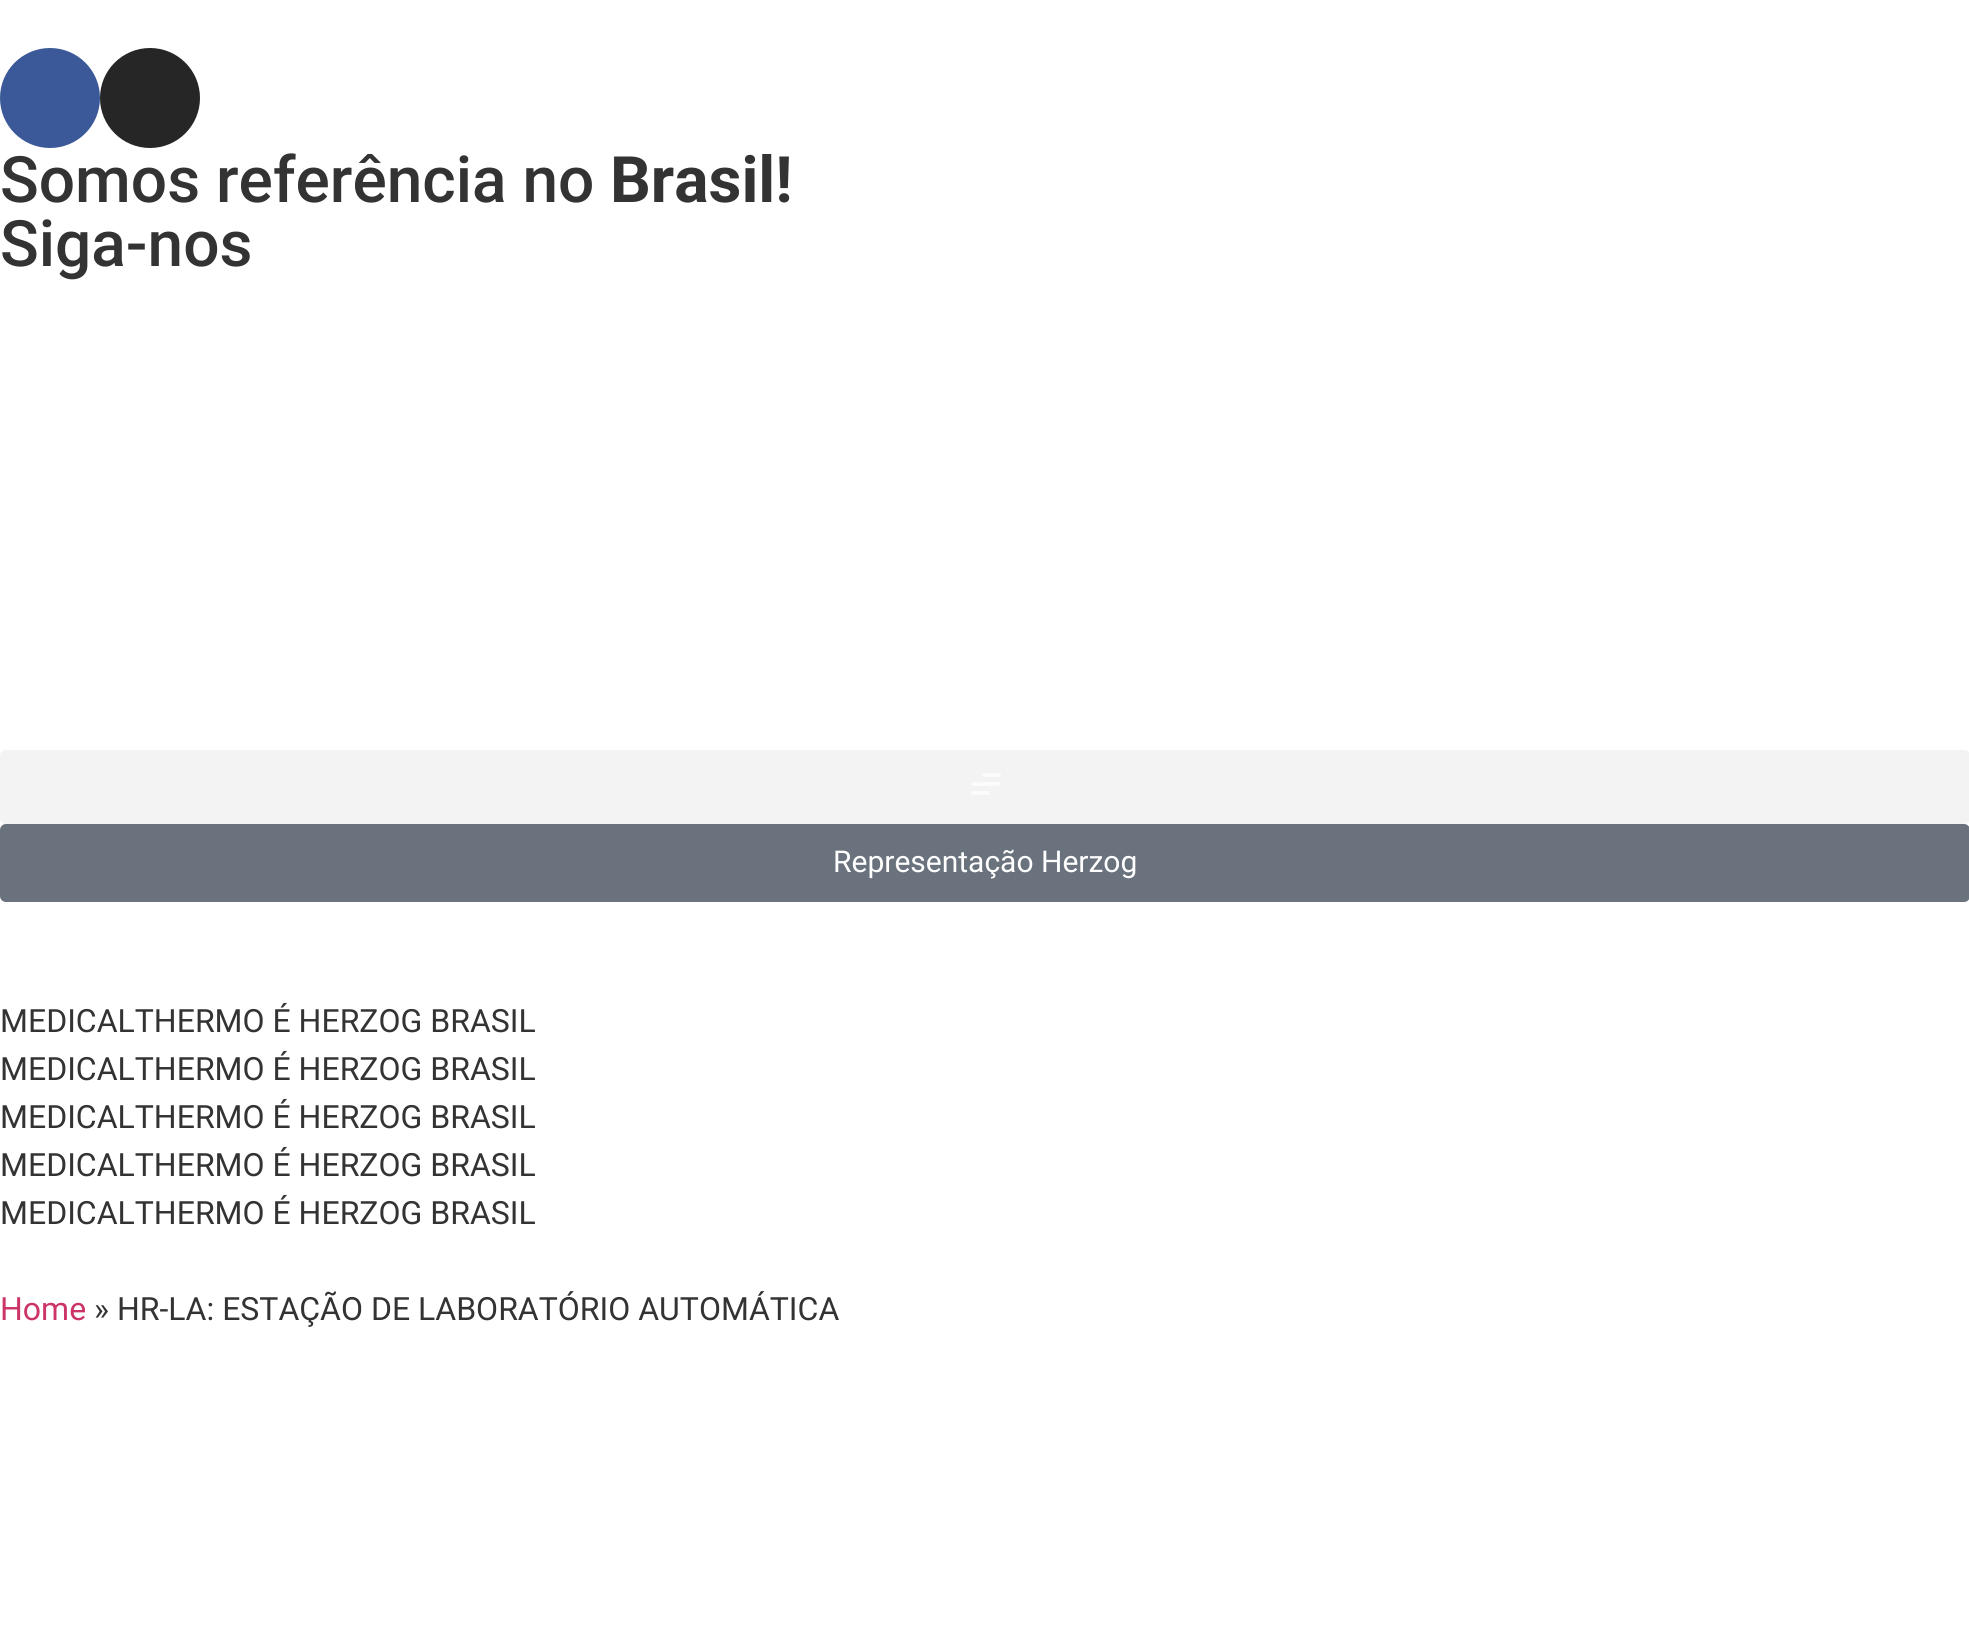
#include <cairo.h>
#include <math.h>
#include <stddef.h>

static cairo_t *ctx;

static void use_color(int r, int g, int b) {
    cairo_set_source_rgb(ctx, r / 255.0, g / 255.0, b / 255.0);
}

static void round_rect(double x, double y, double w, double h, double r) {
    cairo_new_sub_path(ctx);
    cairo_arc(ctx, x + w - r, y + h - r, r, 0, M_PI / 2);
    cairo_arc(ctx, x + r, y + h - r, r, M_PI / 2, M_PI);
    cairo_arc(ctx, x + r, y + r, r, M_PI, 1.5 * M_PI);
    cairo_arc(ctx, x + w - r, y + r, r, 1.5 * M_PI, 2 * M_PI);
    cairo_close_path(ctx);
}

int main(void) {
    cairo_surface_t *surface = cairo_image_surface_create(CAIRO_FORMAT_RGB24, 1969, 1648);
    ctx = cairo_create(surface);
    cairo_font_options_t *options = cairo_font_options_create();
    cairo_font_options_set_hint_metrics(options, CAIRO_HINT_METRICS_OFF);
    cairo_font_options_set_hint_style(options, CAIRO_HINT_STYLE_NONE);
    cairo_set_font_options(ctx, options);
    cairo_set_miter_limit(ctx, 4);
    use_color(255, 255, 255);
    cairo_paint(ctx);
    use_color(59, 89, 152);
    cairo_arc(ctx, 50, 98, 50, 0, 2 * M_PI);
    cairo_fill(ctx);
    use_color(38, 38, 38);
    cairo_arc(ctx, 150, 98, 50, 0, 2 * M_PI);
    cairo_fill(ctx);
    cairo_select_font_face(ctx, "Roboto Medium", CAIRO_FONT_SLANT_NORMAL, CAIRO_FONT_WEIGHT_NORMAL);
    cairo_set_font_size(ctx, 64);
    use_color(51, 51, 51);
    cairo_move_to(ctx, 0, 202);
    cairo_show_text(ctx, "Somos referência no");
    cairo_select_font_face(ctx, "Roboto", CAIRO_FONT_SLANT_NORMAL, CAIRO_FONT_WEIGHT_BOLD);
    cairo_move_to(ctx, 610, 202);
    cairo_show_text(ctx, "Brasil!");
    cairo_select_font_face(ctx, "Roboto Medium", CAIRO_FONT_SLANT_NORMAL, CAIRO_FONT_WEIGHT_NORMAL);
    cairo_move_to(ctx, 0, 266);
    cairo_show_text(ctx, "Siga-nos");
    use_color(243, 243, 243);
    round_rect(0, 750, 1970, 74, 6);
    cairo_fill(ctx);
    cairo_new_path(ctx);
    cairo_move_to(ctx, 973, 793);
    cairo_line_to(ctx, 988, 793);
    cairo_move_to(ctx, 973, 784);
    cairo_line_to(ctx, 999, 784);
    cairo_move_to(ctx, 984, 775);
    cairo_line_to(ctx, 999, 775);
    use_color(252, 252, 252);
    cairo_set_line_width(ctx, 3.7);
    cairo_set_line_cap(ctx, CAIRO_LINE_CAP_ROUND);
    cairo_set_line_join(ctx, CAIRO_LINE_JOIN_ROUND);
    cairo_stroke(ctx);
    use_color(105, 114, 125);
    round_rect(0, 824, 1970, 78, 6);
    cairo_fill(ctx);
    cairo_select_font_face(ctx, "Roboto", CAIRO_FONT_SLANT_NORMAL, CAIRO_FONT_WEIGHT_NORMAL);
    cairo_set_font_size(ctx, 30);
    use_color(255, 255, 255);
    cairo_move_to(ctx, 833, 872);
    cairo_show_text(ctx, "Representação Herzog");
    cairo_set_font_size(ctx, 32);
    use_color(51, 51, 51);
    cairo_move_to(ctx, 0, 1032);
    cairo_show_text(ctx, "MEDICALTHERMO É HERZOG BRASIL");
    cairo_move_to(ctx, 0, 1080);
    cairo_show_text(ctx, "MEDICALTHERMO É HERZOG BRASIL");
    cairo_move_to(ctx, 0, 1128);
    cairo_show_text(ctx, "MEDICALTHERMO É HERZOG BRASIL");
    cairo_move_to(ctx, 0, 1176);
    cairo_show_text(ctx, "MEDICALTHERMO É HERZOG BRASIL");
    cairo_move_to(ctx, 0, 1224);
    cairo_show_text(ctx, "MEDICALTHERMO É HERZOG BRASIL");
    use_color(204, 51, 102);
    cairo_move_to(ctx, 0, 1320);
    cairo_show_text(ctx, "Home");
    use_color(51, 51, 51);
    cairo_move_to(ctx, 94, 1320);
    cairo_show_text(ctx, "» HR-LA: ESTAÇÃO DE LABORATÓRIO AUTOMÁTICA");
    cairo_surface_write_to_png(surface, "result.png");
    cairo_font_options_destroy(options);
    cairo_destroy(ctx);
    cairo_surface_destroy(surface);
    return 0;
}
